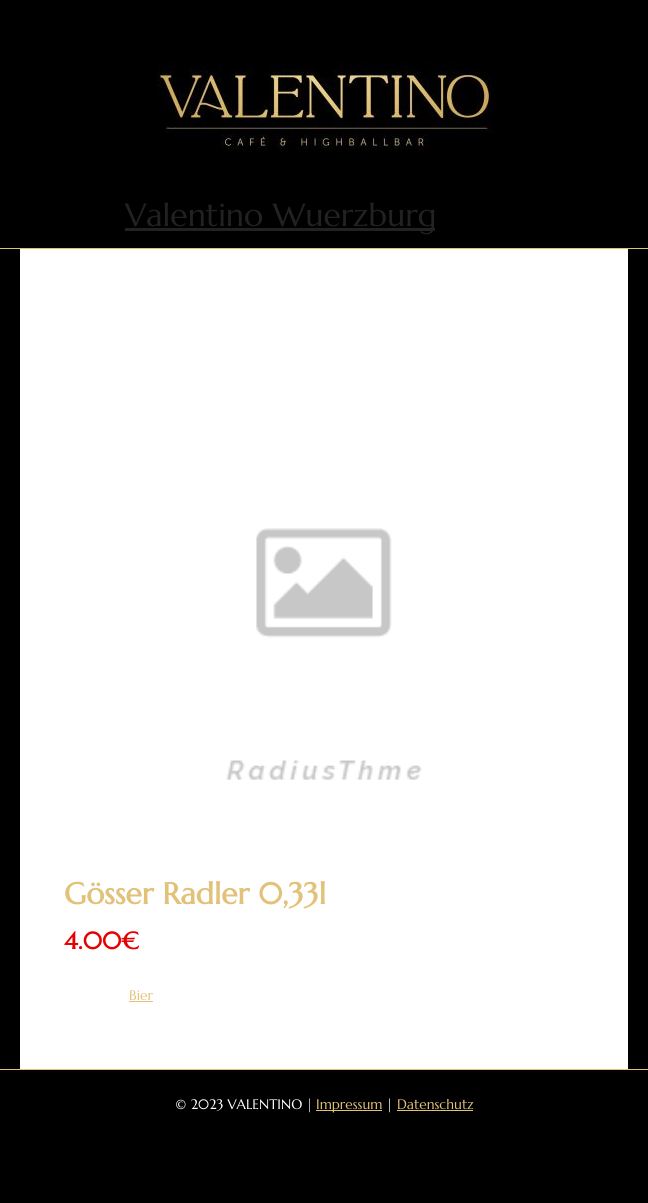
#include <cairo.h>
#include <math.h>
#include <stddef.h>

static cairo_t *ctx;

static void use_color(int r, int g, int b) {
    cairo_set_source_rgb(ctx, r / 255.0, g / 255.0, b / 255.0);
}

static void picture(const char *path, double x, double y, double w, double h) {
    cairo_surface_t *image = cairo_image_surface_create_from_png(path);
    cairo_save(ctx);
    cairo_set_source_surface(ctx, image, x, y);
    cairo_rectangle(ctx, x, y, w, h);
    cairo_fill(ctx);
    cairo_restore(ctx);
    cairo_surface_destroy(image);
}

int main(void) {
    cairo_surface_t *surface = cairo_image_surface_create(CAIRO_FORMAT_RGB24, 648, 1203);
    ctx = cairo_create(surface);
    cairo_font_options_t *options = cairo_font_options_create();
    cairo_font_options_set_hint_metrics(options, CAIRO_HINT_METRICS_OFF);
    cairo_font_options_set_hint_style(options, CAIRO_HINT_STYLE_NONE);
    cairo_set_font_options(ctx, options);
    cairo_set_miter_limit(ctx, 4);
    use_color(0, 0, 0);
    cairo_paint(ctx);
    use_color(226, 193, 121);
    cairo_rectangle(ctx, 0, 248, 648, 1);
    cairo_fill(ctx);
    picture("img1.png", 157, 62, 336, 88);
    use_color(34, 34, 34);
    cairo_rectangle(ctx, 125, 228, 310, 3);
    cairo_fill(ctx);
    cairo_select_font_face(ctx, "Marcellus", CAIRO_FONT_SLANT_NORMAL, CAIRO_FONT_WEIGHT_NORMAL);
    cairo_set_font_size(ctx, 32);
    cairo_move_to(ctx, 125, 226);
    cairo_show_text(ctx, "Valentino Wuerzburg");
    use_color(255, 255, 255);
    cairo_rectangle(ctx, 20, 249, 608, 820);
    cairo_fill(ctx);
    picture("img2.png", 226, 528, 196, 252);
    cairo_select_font_face(ctx, "Marcellus", CAIRO_FONT_SLANT_NORMAL, CAIRO_FONT_WEIGHT_BOLD);
    cairo_set_font_size(ctx, 30);
    use_color(226, 193, 121);
    cairo_move_to(ctx, 64, 904);
    cairo_show_text(ctx, "Gösser Radler 0,33l");
    cairo_set_font_size(ctx, 24);
    use_color(230, 0, 0);
    cairo_move_to(ctx, 64, 949);
    cairo_show_text(ctx, "4.00€");
    cairo_select_font_face(ctx, "Marcellus", CAIRO_FONT_SLANT_NORMAL, CAIRO_FONT_WEIGHT_NORMAL);
    cairo_set_font_size(ctx, 13.75);
    use_color(226, 193, 121);
    cairo_move_to(ctx, 129, 1000);
    cairo_show_text(ctx, "Bier");
    cairo_rectangle(ctx, 129, 1001, 24, 1);
    cairo_fill(ctx);
    cairo_rectangle(ctx, 0, 1069, 648, 1);
    cairo_fill(ctx);
    use_color(255, 255, 255);
    cairo_move_to(ctx, 175, 1109);
    cairo_show_text(ctx, "© 2023 VALENTINO |");
    use_color(226, 193, 121);
    cairo_rectangle(ctx, 316, 1110, 66, 1);
    cairo_fill(ctx);
    cairo_move_to(ctx, 316, 1109);
    cairo_show_text(ctx, "Impressum");
    use_color(255, 255, 255);
    cairo_move_to(ctx, 386, 1109);
    cairo_show_text(ctx, "|");
    use_color(226, 193, 121);
    cairo_move_to(ctx, 397, 1109);
    cairo_show_text(ctx, "Datenschutz");
    cairo_rectangle(ctx, 397, 1110, 76, 1);
    cairo_fill(ctx);
    cairo_surface_write_to_png(surface, "result.png");
    cairo_font_options_destroy(options);
    cairo_destroy(ctx);
    cairo_surface_destroy(surface);
    return 0;
}
